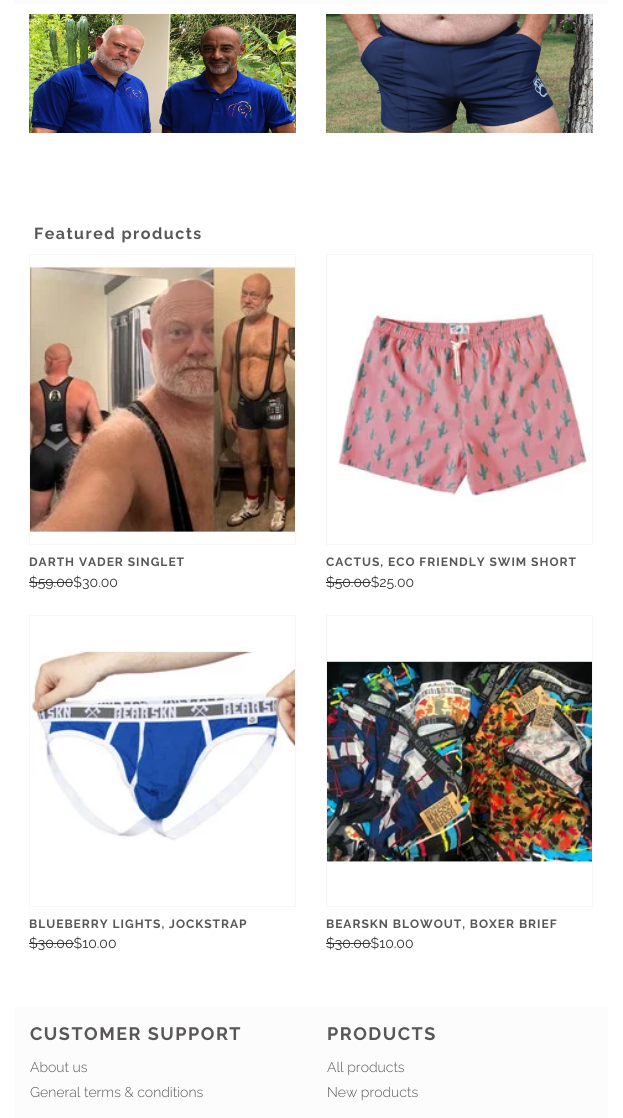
#include <cairo.h>
#include <math.h>
#include <stddef.h>

static cairo_t *ctx;

static void use_color(int r, int g, int b) {
    cairo_set_source_rgb(ctx, r / 255.0, g / 255.0, b / 255.0);
}

static void spaced_text(double x, double y, const char *s, double letter, double word) {
    cairo_move_to(ctx, x, y);
    while (*s) {
        char ch[5] = {0};
        int n = 0;
        do ch[n++] = *s++; while ((*s & 0xC0) == 0x80);
        cairo_show_text(ctx, ch);
        cairo_rel_move_to(ctx, letter + word * (*ch == ' '), 0);
    }
}

static void picture(const char *path, double x, double y, double w, double h) {
    cairo_surface_t *image = cairo_image_surface_create_from_png(path);
    cairo_save(ctx);
    cairo_set_source_surface(ctx, image, x, y);
    cairo_rectangle(ctx, x, y, w, h);
    cairo_fill(ctx);
    cairo_restore(ctx);
    cairo_surface_destroy(image);
}

int main(void) {
    cairo_surface_t *surface = cairo_image_surface_create(CAIRO_FORMAT_RGB24, 623, 1118);
    ctx = cairo_create(surface);
    cairo_font_options_t *options = cairo_font_options_create();
    cairo_font_options_set_hint_metrics(options, CAIRO_HINT_METRICS_OFF);
    cairo_font_options_set_hint_style(options, CAIRO_HINT_STYLE_NONE);
    cairo_set_font_options(ctx, options);
    cairo_set_miter_limit(ctx, 4);
    use_color(255, 255, 255);
    cairo_paint(ctx);
    use_color(252, 252, 252);
    cairo_rectangle(ctx, 14, 0, 594, 4);
    cairo_fill(ctx);
    picture("img1.png", 29, 14, 267, 119);
    picture("img2.png", 326, 14, 267, 119);
    cairo_select_font_face(ctx, "Raleway", CAIRO_FONT_SLANT_NORMAL, CAIRO_FONT_WEIGHT_BOLD);
    cairo_set_font_size(ctx, 16);
    use_color(89, 86, 86);
    spaced_text(34, 239, "Featured products", 1.5, 0);
    cairo_rectangle(ctx, 29.5, 254.5, 266, 290);
    use_color(247, 247, 247);
    cairo_set_line_width(ctx, 1);
    cairo_stroke(ctx);
    picture("img3.png", 30, 265, 265, 268);
    cairo_set_font_size(ctx, 12);
    use_color(89, 86, 86);
    spaced_text(29, 566, "DARTH VADER SINGLET", 1, 0);
    cairo_select_font_face(ctx, "Raleway", CAIRO_FONT_SLANT_NORMAL, CAIRO_FONT_WEIGHT_NORMAL);
    cairo_set_font_size(ctx, 14);
    use_color(51, 51, 51);
    cairo_move_to(ctx, 29, 587);
    cairo_show_text(ctx, "$59.00$30.00");
    cairo_rectangle(ctx, 29, 582, 44, 1);
    cairo_fill(ctx);
    cairo_rectangle(ctx, 326.5, 254.5, 266, 290);
    use_color(247, 247, 247);
    cairo_stroke(ctx);
    picture("img4.png", 337, 314, 253, 188);
    cairo_select_font_face(ctx, "Raleway", CAIRO_FONT_SLANT_NORMAL, CAIRO_FONT_WEIGHT_BOLD);
    cairo_set_font_size(ctx, 12);
    use_color(89, 86, 86);
    spaced_text(326, 566, "CACTUS, ECO FRIENDLY SWIM SHORT", 1, 0);
    cairo_select_font_face(ctx, "Raleway", CAIRO_FONT_SLANT_NORMAL, CAIRO_FONT_WEIGHT_NORMAL);
    cairo_set_font_size(ctx, 14);
    use_color(51, 51, 51);
    cairo_move_to(ctx, 326, 587);
    cairo_show_text(ctx, "$50.00$25.00");
    cairo_rectangle(ctx, 326, 582, 45, 1);
    cairo_fill(ctx);
    cairo_rectangle(ctx, 29.5, 615.5, 266, 291);
    use_color(247, 247, 247);
    cairo_stroke(ctx);
    picture("img5.png", 30, 647, 265, 194);
    cairo_select_font_face(ctx, "Raleway", CAIRO_FONT_SLANT_NORMAL, CAIRO_FONT_WEIGHT_BOLD);
    cairo_set_font_size(ctx, 12);
    use_color(89, 86, 86);
    spaced_text(29, 928, "BLUEBERRY LIGHTS, JOCKSTRAP", 1, 0);
    cairo_select_font_face(ctx, "Raleway", CAIRO_FONT_SLANT_NORMAL, CAIRO_FONT_WEIGHT_NORMAL);
    cairo_set_font_size(ctx, 14);
    use_color(51, 51, 51);
    cairo_move_to(ctx, 29, 948);
    cairo_show_text(ctx, "$30.00$10.00");
    cairo_rectangle(ctx, 29, 943, 45, 1);
    cairo_fill(ctx);
    cairo_rectangle(ctx, 326.5, 615.5, 266, 291);
    use_color(247, 247, 247);
    cairo_stroke(ctx);
    picture("img6.png", 327, 656, 265, 208);
    cairo_select_font_face(ctx, "Raleway", CAIRO_FONT_SLANT_NORMAL, CAIRO_FONT_WEIGHT_BOLD);
    cairo_set_font_size(ctx, 12);
    use_color(89, 86, 86);
    spaced_text(326, 928, "BEARSKN BLOWOUT, BOXER BRIEF", 1, 0);
    cairo_select_font_face(ctx, "Raleway", CAIRO_FONT_SLANT_NORMAL, CAIRO_FONT_WEIGHT_NORMAL);
    cairo_set_font_size(ctx, 14);
    use_color(51, 51, 51);
    cairo_move_to(ctx, 326, 948);
    cairo_show_text(ctx, "$30.00$10.00");
    cairo_rectangle(ctx, 326, 943, 45, 1);
    cairo_fill(ctx);
    use_color(252, 252, 252);
    cairo_rectangle(ctx, 15, 1007, 593, 111);
    cairo_fill(ctx);
    cairo_select_font_face(ctx, "Raleway", CAIRO_FONT_SLANT_NORMAL, CAIRO_FONT_WEIGHT_BOLD);
    cairo_set_font_size(ctx, 18);
    use_color(89, 86, 86);
    spaced_text(30, 1040, "CUSTOMER SUPPORT", 1.5, 0);
    cairo_select_font_face(ctx, "Raleway Light", CAIRO_FONT_SLANT_NORMAL, CAIRO_FONT_WEIGHT_NORMAL);
    cairo_set_font_size(ctx, 14);
    cairo_move_to(ctx, 30, 1072);
    cairo_show_text(ctx, "About us");
    cairo_move_to(ctx, 30, 1097);
    cairo_show_text(ctx, "General terms & conditions");
    cairo_select_font_face(ctx, "Raleway", CAIRO_FONT_SLANT_NORMAL, CAIRO_FONT_WEIGHT_BOLD);
    cairo_set_font_size(ctx, 18);
    spaced_text(327, 1040, "PRODUCTS", 1.5, 0);
    cairo_select_font_face(ctx, "Raleway Light", CAIRO_FONT_SLANT_NORMAL, CAIRO_FONT_WEIGHT_NORMAL);
    cairo_set_font_size(ctx, 14);
    cairo_move_to(ctx, 327, 1072);
    cairo_show_text(ctx, "All products");
    cairo_move_to(ctx, 327, 1097);
    cairo_show_text(ctx, "New products");
    cairo_surface_write_to_png(surface, "result.png");
    cairo_font_options_destroy(options);
    cairo_destroy(ctx);
    cairo_surface_destroy(surface);
    return 0;
}
